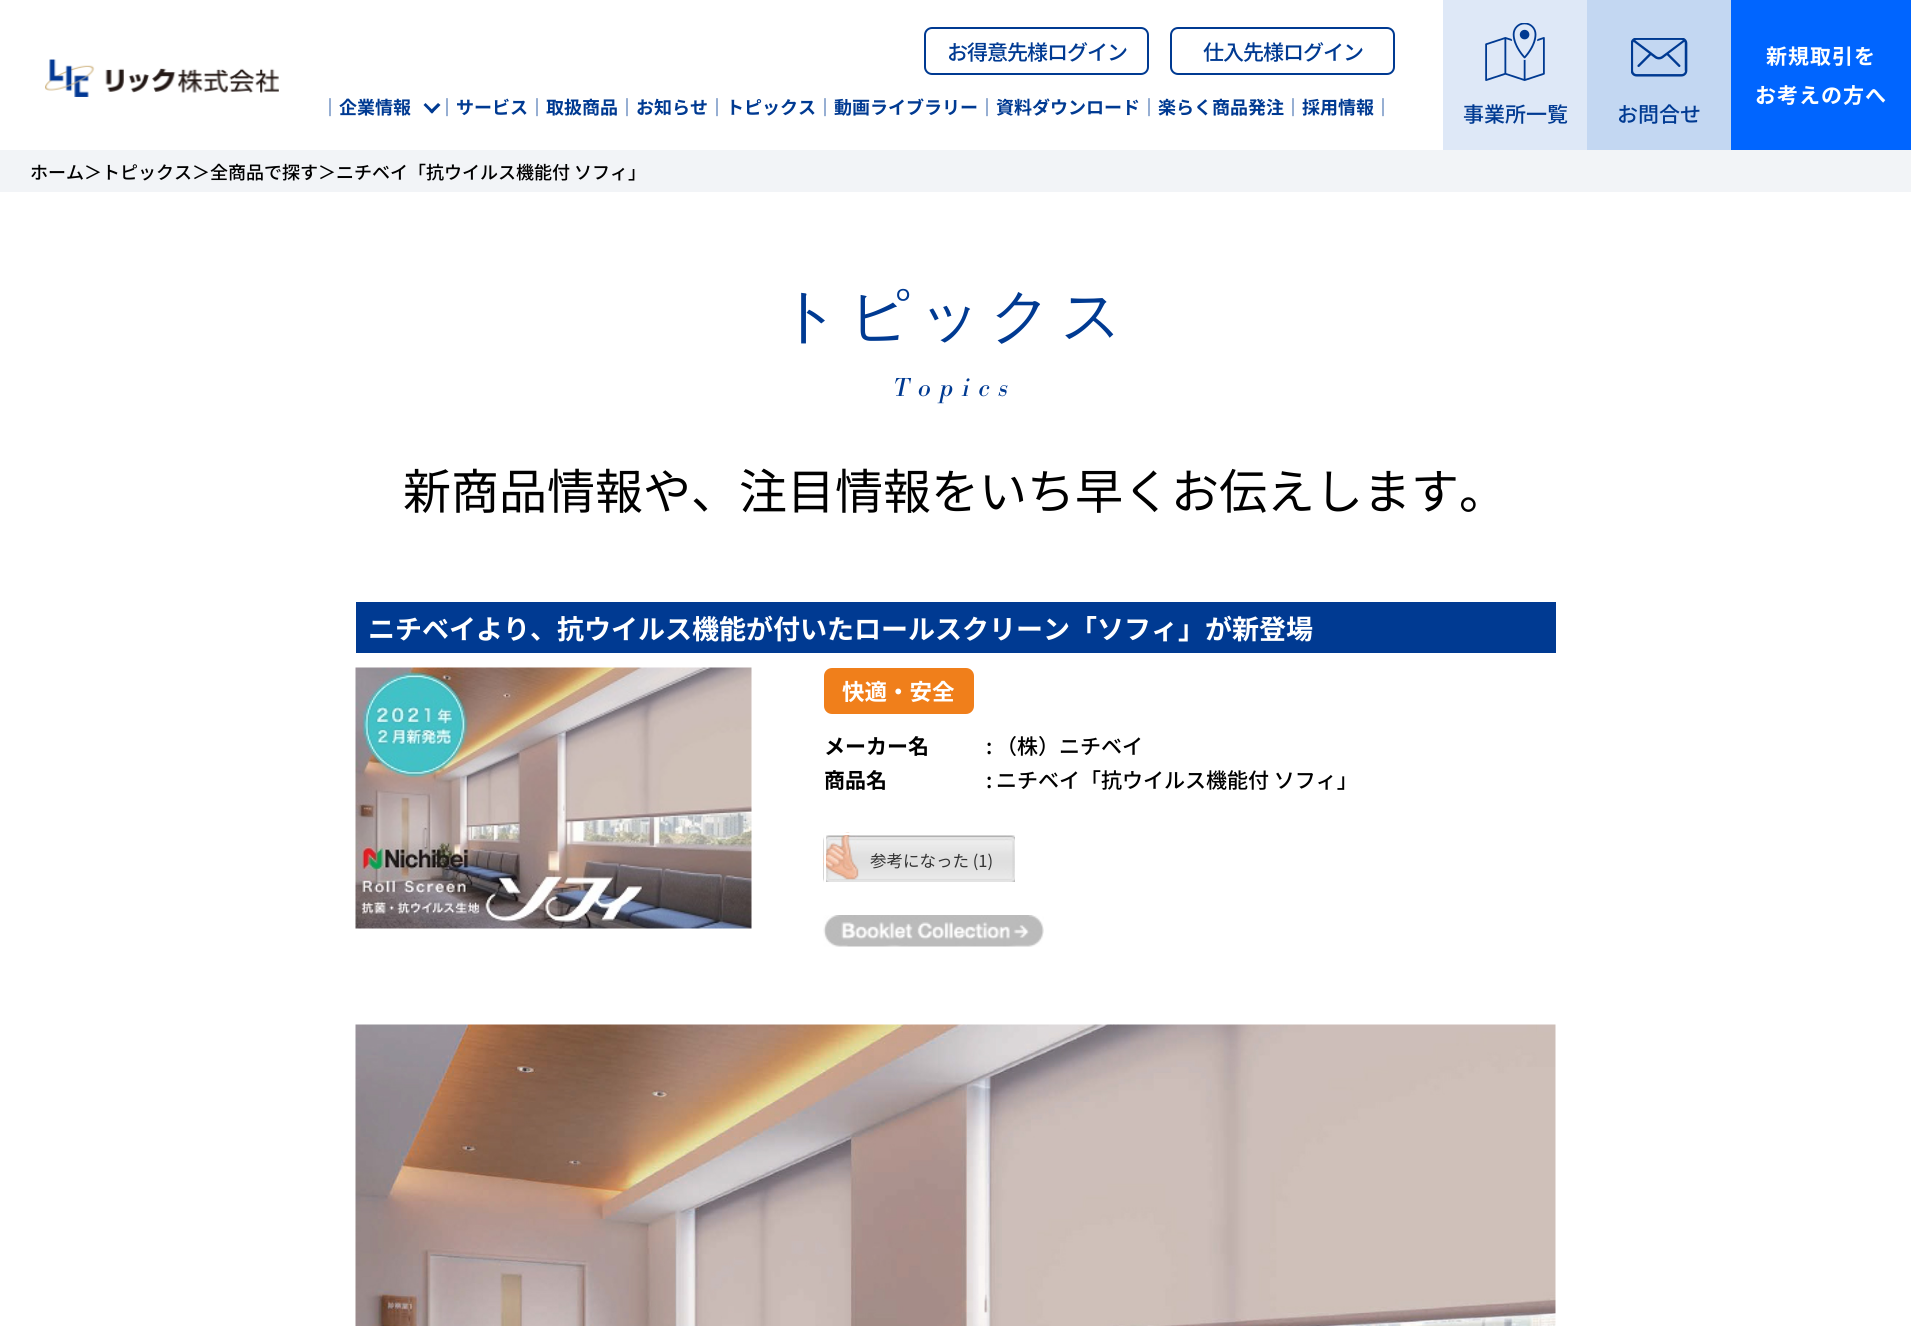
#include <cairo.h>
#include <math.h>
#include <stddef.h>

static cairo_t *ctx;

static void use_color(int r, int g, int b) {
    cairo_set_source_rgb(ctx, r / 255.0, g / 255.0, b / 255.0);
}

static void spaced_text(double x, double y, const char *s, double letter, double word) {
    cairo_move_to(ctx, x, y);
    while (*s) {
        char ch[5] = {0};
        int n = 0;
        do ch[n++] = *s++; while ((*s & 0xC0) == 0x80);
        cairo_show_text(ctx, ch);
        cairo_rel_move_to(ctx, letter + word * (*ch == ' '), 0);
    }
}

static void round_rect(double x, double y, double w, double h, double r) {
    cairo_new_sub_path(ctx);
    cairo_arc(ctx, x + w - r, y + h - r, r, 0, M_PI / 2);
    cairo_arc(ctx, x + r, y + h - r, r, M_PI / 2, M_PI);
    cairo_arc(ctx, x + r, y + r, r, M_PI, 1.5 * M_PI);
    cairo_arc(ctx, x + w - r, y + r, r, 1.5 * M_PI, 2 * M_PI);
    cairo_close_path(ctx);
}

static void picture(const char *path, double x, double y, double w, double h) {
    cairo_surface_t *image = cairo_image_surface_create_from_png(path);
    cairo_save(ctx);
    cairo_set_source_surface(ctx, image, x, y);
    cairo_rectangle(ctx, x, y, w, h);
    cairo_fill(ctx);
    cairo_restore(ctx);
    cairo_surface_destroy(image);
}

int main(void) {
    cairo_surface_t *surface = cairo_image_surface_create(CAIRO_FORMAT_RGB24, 1911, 1326);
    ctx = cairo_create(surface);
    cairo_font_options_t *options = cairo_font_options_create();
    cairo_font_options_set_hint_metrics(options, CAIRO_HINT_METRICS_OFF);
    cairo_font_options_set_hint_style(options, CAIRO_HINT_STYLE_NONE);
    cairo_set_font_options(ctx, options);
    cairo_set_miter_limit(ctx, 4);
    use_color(255, 255, 255);
    cairo_paint(ctx);
    picture("img1.png", 45, 59, 234, 38);
    round_rect(925, 28, 223, 46, 7);
    use_color(0, 58, 146);
    cairo_stroke(ctx);
    cairo_select_font_face(ctx, "Noto Sans JP Medium", CAIRO_FONT_SLANT_NORMAL, CAIRO_FONT_WEIGHT_NORMAL);
    cairo_set_font_size(ctx, 21);
    spaced_text(947, 60, "お得意先様ログイン", -1, 0);
    round_rect(1171, 28, 223, 46, 7);
    cairo_stroke(ctx);
    spaced_text(1203, 60, "仕入先様ログイン", -1, 0);
    cairo_select_font_face(ctx, "Noto Sans JP", CAIRO_FONT_SLANT_NORMAL, CAIRO_FONT_WEIGHT_BOLD);
    cairo_set_font_size(ctx, 18);
    cairo_move_to(ctx, 321, 114);
    cairo_show_text(ctx, "｜企業情報");
    cairo_new_path(ctx);
    cairo_move_to(ctx, 440.5, 105);
    cairo_line_to(ctx, 432, 113.5);
    cairo_line_to(ctx, 429.5, 111.5);
    cairo_line_to(ctx, 438, 103);
    cairo_close_path(ctx);
    cairo_fill(ctx);
    cairo_new_path(ctx);
    cairo_move_to(ctx, 434, 111.5);
    cairo_line_to(ctx, 432, 113.5);
    cairo_line_to(ctx, 423.5, 105);
    cairo_line_to(ctx, 425.5, 103);
    cairo_close_path(ctx);
    cairo_fill(ctx);
    cairo_move_to(ctx, 438, 114);
    cairo_show_text(ctx, "｜サービス｜取扱商品｜お知らせ｜トピックス｜動画ライブラリー｜資料ダウンロード｜楽らく商品発注｜採用情報｜");
    use_color(0, 101, 255);
    cairo_rectangle(ctx, 1731, 0, 180, 150);
    cairo_fill(ctx);
    cairo_set_font_size(ctx, 21);
    use_color(255, 255, 255);
    spaced_text(1766, 64, "新規取引を", 1, 0);
    spaced_text(1755, 103, "お考えの方へ", 1, 0);
    use_color(222, 232, 247);
    cairo_rectangle(ctx, 1443, 0, 144, 150);
    cairo_fill(ctx);
    picture("img2.png", 1485, 23, 60, 58);
    cairo_select_font_face(ctx, "Noto Sans JP Medium", CAIRO_FONT_SLANT_NORMAL, CAIRO_FONT_WEIGHT_NORMAL);
    use_color(0, 58, 146);
    cairo_move_to(ctx, 1463, 122);
    cairo_show_text(ctx, "事業所一覧");
    use_color(195, 215, 242);
    cairo_rectangle(ctx, 1587, 0, 144, 150);
    cairo_fill(ctx);
    picture("img3.png", 1631, 38, 57, 39);
    use_color(0, 58, 146);
    cairo_move_to(ctx, 1617, 122);
    cairo_show_text(ctx, "お問合せ");
    use_color(242, 244, 247);
    cairo_rectangle(ctx, 0, 150, 1911, 42);
    cairo_fill(ctx);
    cairo_set_font_size(ctx, 18);
    use_color(0, 0, 0);
    cairo_move_to(ctx, 30, 179);
    cairo_show_text(ctx, "ホーム");
    cairo_move_to(ctx, 84, 179);
    cairo_show_text(ctx, "＞トピックス");
    cairo_move_to(ctx, 192, 179);
    cairo_show_text(ctx, "＞全商品で探す");
    cairo_move_to(ctx, 318, 179);
    cairo_show_text(ctx, "＞ニチベイ「抗ウイルス機能付 ソフィ」");
    cairo_select_font_face(ctx, "WenQuanYi Zen Hei Medium", CAIRO_FONT_SLANT_NORMAL, CAIRO_FONT_WEIGHT_NORMAL);
    cairo_set_font_size(ctx, 60);
    use_color(0, 58, 146);
    spaced_text(779, 336, "トピックス", 9, 0);
    cairo_select_font_face(ctx, "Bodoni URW", CAIRO_FONT_SLANT_ITALIC, CAIRO_FONT_WEIGHT_NORMAL);
    cairo_set_font_size(ctx, 27);
    spaced_text(894, 396, "Topics", 9, 0);
    cairo_select_font_face(ctx, "Noto Sans JP", CAIRO_FONT_SLANT_NORMAL, CAIRO_FONT_WEIGHT_NORMAL);
    cairo_set_font_size(ctx, 48);
    use_color(0, 0, 0);
    cairo_move_to(ctx, 403, 509);
    cairo_show_text(ctx, "新商品情報や、注目情報をいち早くお伝えします。");
    use_color(0, 58, 146);
    cairo_rectangle(ctx, 356, 602, 1200, 51);
    cairo_fill(ctx);
    cairo_select_font_face(ctx, "Noto Sans JP", CAIRO_FONT_SLANT_NORMAL, CAIRO_FONT_WEIGHT_BOLD);
    cairo_set_font_size(ctx, 27);
    use_color(255, 255, 255);
    cairo_move_to(ctx, 368, 639);
    cairo_show_text(ctx, "ニチベイより、抗ウイルス機能が付いたロールスクリーン「ソフィ」が新登場");
    picture("img4.png", 355, 667, 397, 262);
    use_color(240, 127, 27);
    round_rect(825, 669, 148, 44, 7);
    cairo_fill_preserve(ctx);
    cairo_stroke(ctx);
    cairo_set_font_size(ctx, 22.5);
    use_color(255, 255, 255);
    cairo_move_to(ctx, 842, 700);
    cairo_show_text(ctx, "快適・安全");
    cairo_set_font_size(ctx, 21);
    use_color(0, 0, 0);
    cairo_move_to(ctx, 824, 754);
    cairo_show_text(ctx, "メーカー名");
    cairo_select_font_face(ctx, "Noto Sans JP Medium", CAIRO_FONT_SLANT_NORMAL, CAIRO_FONT_WEIGHT_NORMAL);
    cairo_move_to(ctx, 986, 754);
    cairo_show_text(ctx, ":");
    cairo_move_to(ctx, 996, 754);
    cairo_show_text(ctx, "（株）ニチベイ");
    cairo_select_font_face(ctx, "Noto Sans JP", CAIRO_FONT_SLANT_NORMAL, CAIRO_FONT_WEIGHT_BOLD);
    cairo_move_to(ctx, 824, 788);
    cairo_show_text(ctx, "商品名");
    cairo_select_font_face(ctx, "Noto Sans JP Medium", CAIRO_FONT_SLANT_NORMAL, CAIRO_FONT_WEIGHT_NORMAL);
    cairo_move_to(ctx, 986, 788);
    cairo_show_text(ctx, ":");
    cairo_move_to(ctx, 996, 788);
    cairo_show_text(ctx, "ニチベイ「抗ウイルス機能付 ソフィ」");
    picture("img5.png", 823, 832, 194, 52);
    cairo_rectangle(ctx, 825, 834, 191, 49);
    use_color(255, 255, 255);
    cairo_stroke(ctx);
    cairo_select_font_face(ctx, "Noto Sans JP", CAIRO_FONT_SLANT_NORMAL, CAIRO_FONT_WEIGHT_NORMAL);
    cairo_set_font_size(ctx, 16.5);
    use_color(51, 51, 51);
    cairo_move_to(ctx, 870, 867);
    cairo_show_text(ctx, "参考になった (1)");
    picture("img6.png", 823, 915, 221, 32);
    picture("img7.png", 355, 1024, 1201, 302);
    cairo_surface_write_to_png(surface, "result.png");
    cairo_font_options_destroy(options);
    cairo_destroy(ctx);
    cairo_surface_destroy(surface);
    return 0;
}
